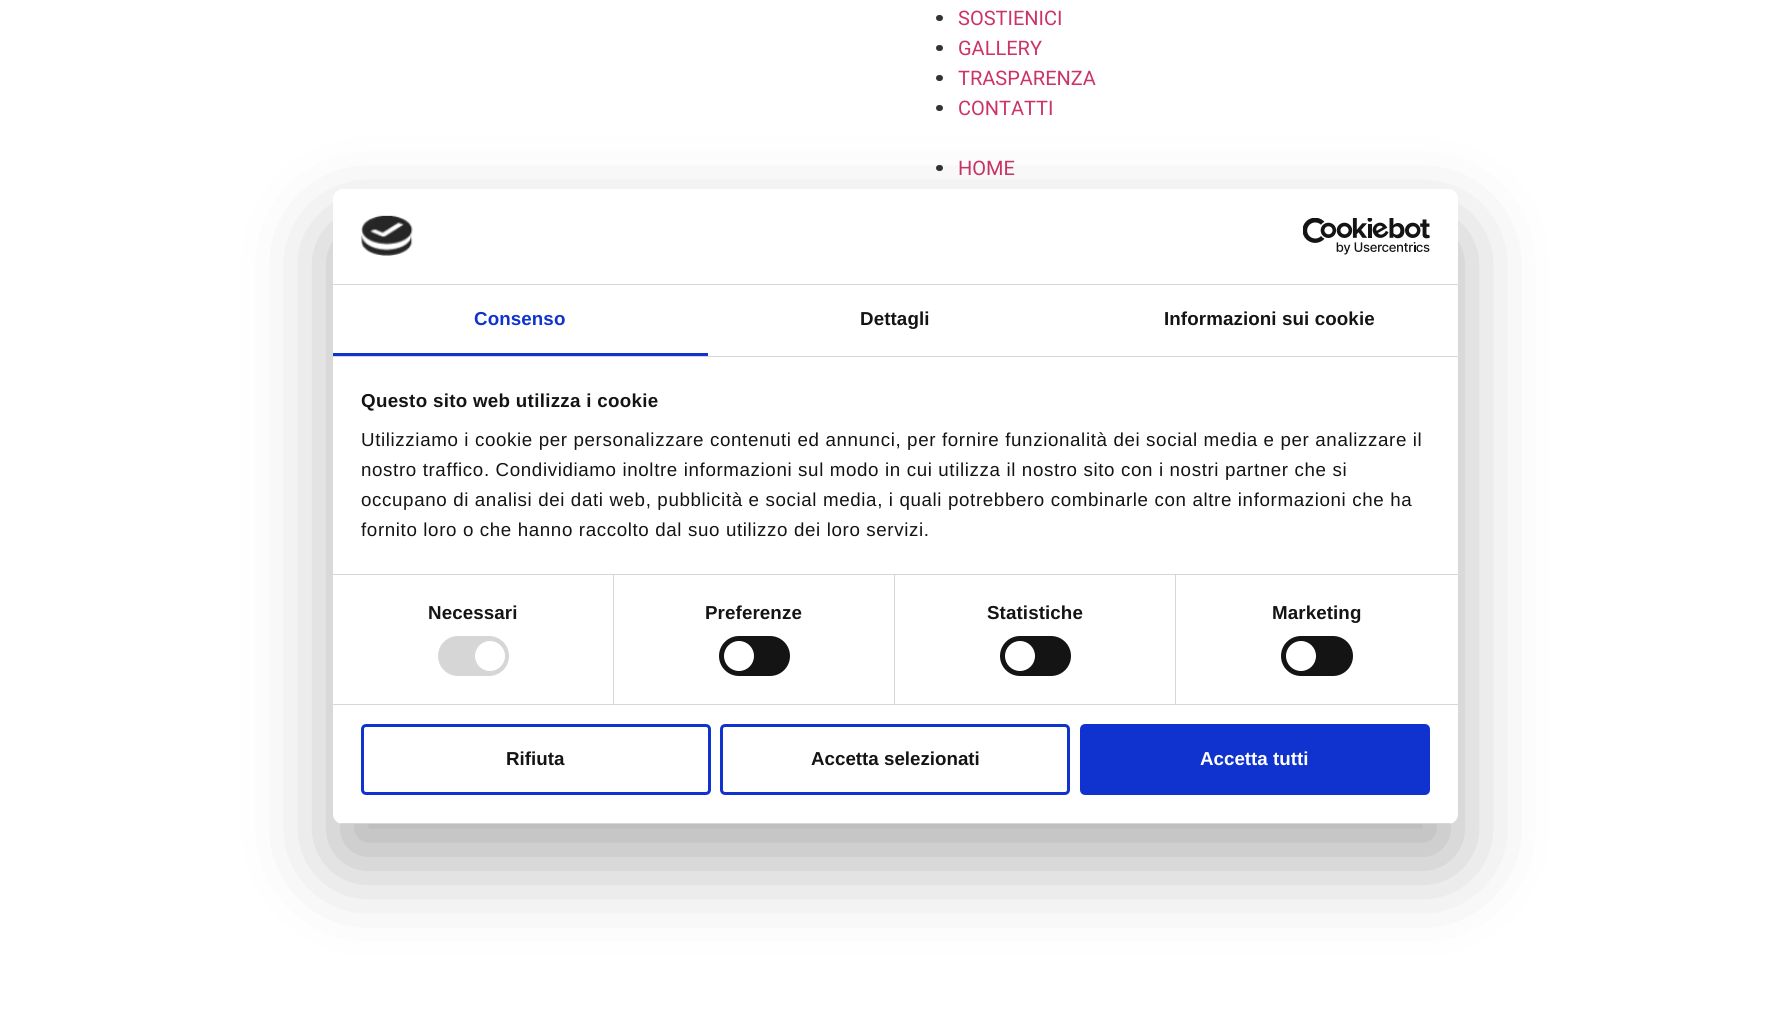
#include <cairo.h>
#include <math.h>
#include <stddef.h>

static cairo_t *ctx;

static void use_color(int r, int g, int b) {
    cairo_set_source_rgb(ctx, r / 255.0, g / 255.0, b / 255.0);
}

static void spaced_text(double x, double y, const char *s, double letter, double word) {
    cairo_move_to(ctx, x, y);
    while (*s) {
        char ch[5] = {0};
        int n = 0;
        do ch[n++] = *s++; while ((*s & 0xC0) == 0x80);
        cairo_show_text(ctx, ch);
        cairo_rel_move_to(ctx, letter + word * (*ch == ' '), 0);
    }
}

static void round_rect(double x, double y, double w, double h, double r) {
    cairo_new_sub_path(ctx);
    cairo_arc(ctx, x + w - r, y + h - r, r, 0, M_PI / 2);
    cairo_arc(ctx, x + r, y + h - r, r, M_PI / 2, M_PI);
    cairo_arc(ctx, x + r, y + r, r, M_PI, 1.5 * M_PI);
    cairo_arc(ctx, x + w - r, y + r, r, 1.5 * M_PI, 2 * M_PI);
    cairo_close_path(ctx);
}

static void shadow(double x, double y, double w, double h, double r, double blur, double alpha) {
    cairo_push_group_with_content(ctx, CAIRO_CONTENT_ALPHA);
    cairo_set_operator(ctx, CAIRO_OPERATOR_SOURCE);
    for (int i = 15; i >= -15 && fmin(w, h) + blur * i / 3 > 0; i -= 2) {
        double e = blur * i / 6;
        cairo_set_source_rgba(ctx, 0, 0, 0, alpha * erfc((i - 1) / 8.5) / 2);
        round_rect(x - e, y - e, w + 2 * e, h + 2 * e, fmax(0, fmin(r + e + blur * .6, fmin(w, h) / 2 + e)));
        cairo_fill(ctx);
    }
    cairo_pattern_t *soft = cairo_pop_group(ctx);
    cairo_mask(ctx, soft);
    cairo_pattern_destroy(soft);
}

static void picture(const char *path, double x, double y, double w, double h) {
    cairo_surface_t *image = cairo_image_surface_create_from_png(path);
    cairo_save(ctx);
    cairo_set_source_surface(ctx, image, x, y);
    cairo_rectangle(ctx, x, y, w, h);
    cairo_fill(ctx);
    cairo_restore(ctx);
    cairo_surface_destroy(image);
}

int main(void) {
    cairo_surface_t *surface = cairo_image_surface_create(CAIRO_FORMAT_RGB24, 1790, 1011);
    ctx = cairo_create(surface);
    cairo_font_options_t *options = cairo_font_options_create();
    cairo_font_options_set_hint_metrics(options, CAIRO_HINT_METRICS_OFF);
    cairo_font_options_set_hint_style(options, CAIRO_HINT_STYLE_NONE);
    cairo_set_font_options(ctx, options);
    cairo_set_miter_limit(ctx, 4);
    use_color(255, 255, 255);
    cairo_paint(ctx);
    use_color(51, 51, 51);
    round_rect(936, 15, 7, 6, 3);
    cairo_fill(ctx);
    cairo_select_font_face(ctx, "Roboto", CAIRO_FONT_SLANT_NORMAL, CAIRO_FONT_WEIGHT_NORMAL);
    cairo_set_font_size(ctx, 20);
    use_color(204, 51, 102);
    cairo_move_to(ctx, 958, 25);
    cairo_show_text(ctx, "SOSTIENICI");
    use_color(51, 51, 51);
    round_rect(936, 45, 7, 6, 3);
    cairo_fill(ctx);
    use_color(204, 51, 102);
    cairo_move_to(ctx, 958, 55);
    cairo_show_text(ctx, "GALLERY");
    use_color(51, 51, 51);
    round_rect(936, 75, 7, 6, 3);
    cairo_fill(ctx);
    use_color(204, 51, 102);
    cairo_move_to(ctx, 958, 85);
    cairo_show_text(ctx, "TRASPARENZA");
    use_color(51, 51, 51);
    round_rect(936, 105, 7, 6, 3);
    cairo_fill(ctx);
    use_color(204, 51, 102);
    cairo_move_to(ctx, 958, 115);
    cairo_show_text(ctx, "CONTATTI");
    use_color(51, 51, 51);
    round_rect(936, 165, 7, 6, 3);
    cairo_fill(ctx);
    use_color(204, 51, 102);
    cairo_move_to(ctx, 958, 175);
    cairo_show_text(ctx, "HOME");
    use_color(0, 0, 0);
    shadow(333, 229, 1125, 635, 10, 42.5, 0.3);
    use_color(255, 255, 255);
    round_rect(333, 189, 1125, 635, 10);
    cairo_fill(ctx);
    use_color(214, 214, 214);
    cairo_rectangle(ctx, 333, 284, 1125, 1);
    cairo_fill(ctx);
    picture("img1.png", 361, 215, 52, 41);
    picture("img2.png", 1303, 218, 127, 37);
    cairo_rectangle(ctx, 333, 356, 1125, 1);
    cairo_fill(ctx);
    use_color(16, 50, 207);
    cairo_rectangle(ctx, 333, 353, 375, 3);
    cairo_fill(ctx);
    cairo_select_font_face(ctx, "Liberation Sans", CAIRO_FONT_SLANT_NORMAL, CAIRO_FONT_WEIGHT_BOLD);
    cairo_set_font_size(ctx, 18.75);
    spaced_text(474, 325, "Consenso", 0.1, 0);
    use_color(20, 20, 20);
    spaced_text(860, 325, "Dettagli", 0.1, 0);
    spaced_text(1164, 325, "Informazioni sui cookie", 0.1, 0);
    use_color(214, 214, 214);
    cairo_rectangle(ctx, 333, 574, 1125, 1);
    cairo_fill(ctx);
    use_color(20, 20, 20);
    spaced_text(361, 407, "Questo sito web utilizza i cookie", 0.3, 0);
    cairo_select_font_face(ctx, "Liberation Sans", CAIRO_FONT_SLANT_NORMAL, CAIRO_FONT_WEIGHT_NORMAL);
    spaced_text(361, 446, "Utilizziamo i cookie per personalizzare contenuti ed annunci, per fornire funzionalità dei social media e per analizzare il", 0.62, 0);
    spaced_text(361, 476, "nostro traffico. Condividiamo inoltre informazioni sul modo in cui utilizza il nostro sito con i nostri partner che si", 0.62, 0);
    spaced_text(361, 506, "occupano di analisi dei dati web, pubblicità e social media, i quali potrebbero combinarle con altre informazioni che ha", 0.62, 0);
    spaced_text(361, 536, "fornito loro o che hanno raccolto dal suo utilizzo dei loro servizi.", 0.62, 0);
    use_color(214, 214, 214);
    cairo_rectangle(ctx, 333, 704, 1125, 1);
    cairo_fill(ctx);
    cairo_rectangle(ctx, 613, 575, 1, 129);
    cairo_fill(ctx);
    cairo_select_font_face(ctx, "Liberation Sans", CAIRO_FONT_SLANT_NORMAL, CAIRO_FONT_WEIGHT_BOLD);
    use_color(20, 20, 20);
    spaced_text(428, 619, "Necessari", 0.1, 0);
    use_color(214, 214, 214);
    round_rect(438, 636, 71, 40, 20);
    cairo_fill(ctx);
    use_color(255, 255, 255);
    cairo_arc(ctx, 490, 656, 15, 0, 2 * M_PI);
    cairo_fill(ctx);
    use_color(214, 214, 214);
    cairo_rectangle(ctx, 894, 575, 1, 129);
    cairo_fill(ctx);
    use_color(20, 20, 20);
    spaced_text(705, 619, "Preferenze", 0.1, 0);
    round_rect(719, 636, 71, 40, 20);
    cairo_fill(ctx);
    use_color(255, 255, 255);
    cairo_arc(ctx, 739, 656, 15, 0, 2 * M_PI);
    cairo_fill(ctx);
    use_color(214, 214, 214);
    cairo_rectangle(ctx, 1175, 575, 1, 129);
    cairo_fill(ctx);
    use_color(20, 20, 20);
    spaced_text(987, 619, "Statistiche", 0.1, 0);
    round_rect(1000, 636, 71, 40, 20);
    cairo_fill(ctx);
    use_color(255, 255, 255);
    cairo_arc(ctx, 1020, 656, 15, 0, 2 * M_PI);
    cairo_fill(ctx);
    use_color(20, 20, 20);
    spaced_text(1272, 619, "Marketing", 0.1, 0);
    round_rect(1281, 636, 72, 40, 20);
    cairo_fill(ctx);
    use_color(255, 255, 255);
    cairo_arc(ctx, 1301, 656, 15, 0, 2 * M_PI);
    cairo_fill(ctx);
    cairo_save(ctx);
    round_rect(333, 189, 1125, 635, 10);
    cairo_clip(ctx);
    use_color(214, 214, 214);
    cairo_rectangle(ctx, 333, 823, 1125, 1);
    cairo_fill(ctx);
    cairo_restore(ctx);
    round_rect(362.5, 725.5, 347, 68, 3.5);
    use_color(16, 50, 207);
    cairo_set_line_width(ctx, 3);
    cairo_stroke(ctx);
    use_color(20, 20, 20);
    cairo_move_to(ctx, 506, 765);
    cairo_show_text(ctx, "Rifiuta");
    round_rect(721.5, 725.5, 347, 68, 3.5);
    use_color(16, 50, 207);
    cairo_stroke(ctx);
    use_color(20, 20, 20);
    cairo_move_to(ctx, 811, 765);
    cairo_show_text(ctx, "Accetta selezionati");
    use_color(16, 50, 207);
    round_rect(1081.5, 725.5, 347, 68, 3.5);
    cairo_fill_preserve(ctx);
    cairo_stroke(ctx);
    use_color(255, 255, 255);
    cairo_move_to(ctx, 1200, 765);
    cairo_show_text(ctx, "Accetta tutti");
    cairo_surface_write_to_png(surface, "result.png");
    cairo_font_options_destroy(options);
    cairo_destroy(ctx);
    cairo_surface_destroy(surface);
    return 0;
}
